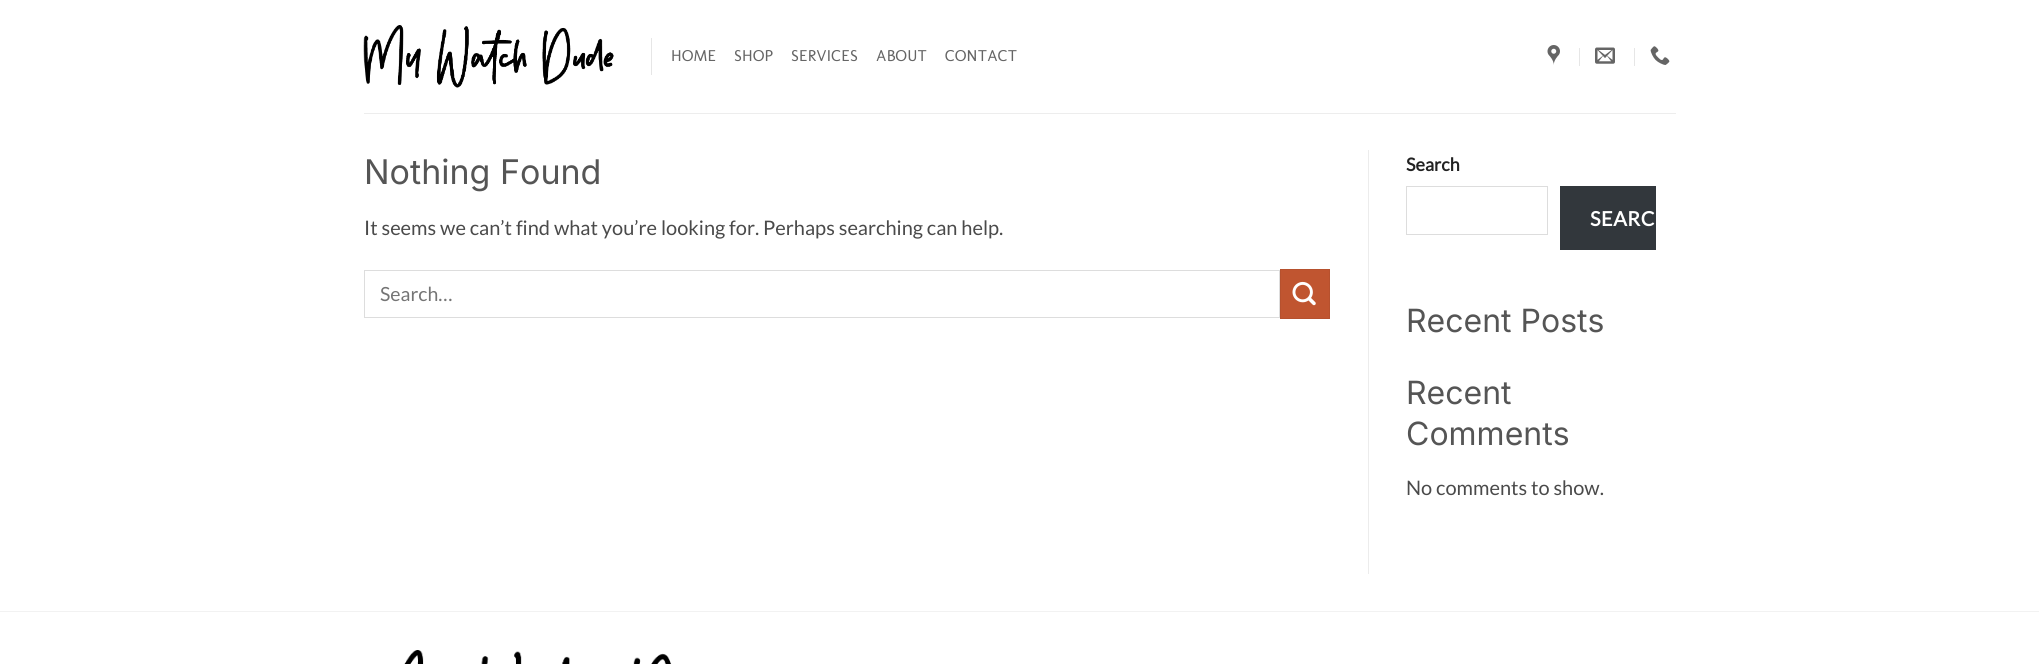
#include <cairo.h>
#include <math.h>
#include <stddef.h>

static cairo_t *ctx;

static void use_color(int r, int g, int b) {
    cairo_set_source_rgb(ctx, r / 255.0, g / 255.0, b / 255.0);
}

static void spaced_text(double x, double y, const char *s, double letter, double word) {
    cairo_move_to(ctx, x, y);
    while (*s) {
        char ch[5] = {0};
        int n = 0;
        do ch[n++] = *s++; while ((*s & 0xC0) == 0x80);
        cairo_show_text(ctx, ch);
        cairo_rel_move_to(ctx, letter + word * (*ch == ' '), 0);
    }
}

static void picture(const char *path, double x, double y, double w, double h) {
    cairo_surface_t *image = cairo_image_surface_create_from_png(path);
    cairo_save(ctx);
    cairo_set_source_surface(ctx, image, x, y);
    cairo_rectangle(ctx, x, y, w, h);
    cairo_fill(ctx);
    cairo_restore(ctx);
    cairo_surface_destroy(image);
}

int main(void) {
    cairo_surface_t *surface = cairo_image_surface_create(CAIRO_FORMAT_RGB24, 2039, 664);
    ctx = cairo_create(surface);
    cairo_font_options_t *options = cairo_font_options_create();
    cairo_font_options_set_hint_metrics(options, CAIRO_HINT_METRICS_OFF);
    cairo_font_options_set_hint_style(options, CAIRO_HINT_STYLE_NONE);
    cairo_set_font_options(ctx, options);
    cairo_set_miter_limit(ctx, 4);
    use_color(255, 255, 255);
    cairo_paint(ctx);
    picture("img1.png", 363, 25, 251, 63);
    use_color(230, 230, 230);
    cairo_rectangle(ctx, 651, 38, 1, 37);
    cairo_fill(ctx);
    cairo_select_font_face(ctx, "Molengo", CAIRO_FONT_SLANT_NORMAL, CAIRO_FONT_WEIGHT_NORMAL);
    cairo_set_font_size(ctx, 16);
    use_color(101, 101, 101);
    spaced_text(671, 61, "HOME", 0.25, 0);
    spaced_text(734, 61, "SHOP", 0.25, 0);
    spaced_text(791, 61, "SERVICES", 0.25, 0);
    spaced_text(876, 61, "ABOUT", 0.25, 0);
    spaced_text(945, 61, "CONTACT", 0.25, 0);
    picture("img2.png", 1547, 45, 13, 20);
    use_color(230, 230, 230);
    cairo_rectangle(ctx, 1579, 48, 1, 18);
    cairo_fill(ctx);
    picture("img3.png", 1595, 47, 20, 17);
    cairo_rectangle(ctx, 1634, 48, 1, 18);
    cairo_fill(ctx);
    picture("img4.png", 1650, 46, 20, 19);
    use_color(237, 237, 237);
    cairo_rectangle(ctx, 364, 113, 1312, 1);
    cairo_fill(ctx);
    cairo_select_font_face(ctx, "Inter", CAIRO_FONT_SLANT_NORMAL, CAIRO_FONT_WEIGHT_NORMAL);
    cairo_set_font_size(ctx, 34);
    use_color(85, 85, 85);
    cairo_move_to(ctx, 364, 184);
    cairo_show_text(ctx, "Nothing Found");
    cairo_select_font_face(ctx, "Lato", CAIRO_FONT_SLANT_NORMAL, CAIRO_FONT_WEIGHT_NORMAL);
    cairo_set_font_size(ctx, 20);
    use_color(74, 74, 74);
    cairo_move_to(ctx, 364, 235);
    cairo_show_text(ctx, "It seems we can’t find what you’re looking for. Perhaps searching can help.");
    cairo_rectangle(ctx, 364.5, 270.5, 915, 47);
    use_color(221, 221, 221);
    cairo_set_line_width(ctx, 1);
    cairo_stroke(ctx);
    cairo_set_font_size(ctx, 19.5);
    use_color(117, 117, 117);
    cairo_move_to(ctx, 380, 301);
    cairo_show_text(ctx, "Search…");
    use_color(192, 85, 48);
    cairo_rectangle(ctx, 1280.5, 269.5, 49, 49);
    cairo_fill_preserve(ctx);
    use_color(182, 81, 46);
    cairo_stroke(ctx);
    picture("img5.png", 1292, 281, 24, 25);
    use_color(236, 236, 236);
    cairo_rectangle(ctx, 1368, 150, 1, 424);
    cairo_fill(ctx);
    cairo_select_font_face(ctx, "Lato", CAIRO_FONT_SLANT_NORMAL, CAIRO_FONT_WEIGHT_BOLD);
    cairo_set_font_size(ctx, 18);
    use_color(34, 34, 34);
    cairo_move_to(ctx, 1406, 171);
    cairo_show_text(ctx, "Search");
    cairo_rectangle(ctx, 1406.5, 186.5, 141, 48);
    use_color(221, 221, 221);
    cairo_stroke(ctx);
    use_color(50, 55, 60);
    cairo_rectangle(ctx, 1560, 186, 96, 64);
    cairo_fill(ctx);
    cairo_set_font_size(ctx, 20);
    use_color(255, 255, 255);
    spaced_text(1590, 226, "SEARC", 0.5, 0);
    cairo_select_font_face(ctx, "Inter", CAIRO_FONT_SLANT_NORMAL, CAIRO_FONT_WEIGHT_NORMAL);
    cairo_set_font_size(ctx, 32);
    use_color(85, 85, 85);
    cairo_move_to(ctx, 1406, 332);
    cairo_show_text(ctx, "Recent Posts");
    cairo_move_to(ctx, 1406, 404);
    cairo_show_text(ctx, "Recent");
    cairo_move_to(ctx, 1406, 445);
    cairo_show_text(ctx, "Comments");
    cairo_select_font_face(ctx, "Lato", CAIRO_FONT_SLANT_NORMAL, CAIRO_FONT_WEIGHT_NORMAL);
    cairo_set_font_size(ctx, 20);
    use_color(74, 74, 74);
    cairo_move_to(ctx, 1406, 495);
    cairo_show_text(ctx, "No comments to show.");
    use_color(242, 242, 242);
    cairo_rectangle(ctx, 0, 611, 2039, 1);
    cairo_fill(ctx);
    picture("img6.png", 404, 650, 268, 14);
    cairo_surface_write_to_png(surface, "result.png");
    cairo_font_options_destroy(options);
    cairo_destroy(ctx);
    cairo_surface_destroy(surface);
    return 0;
}
